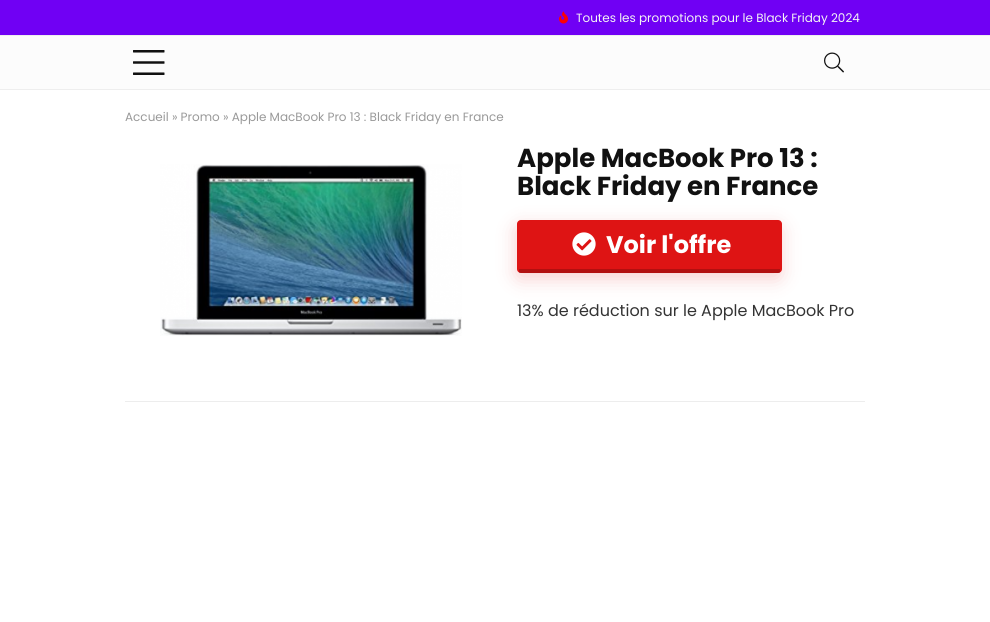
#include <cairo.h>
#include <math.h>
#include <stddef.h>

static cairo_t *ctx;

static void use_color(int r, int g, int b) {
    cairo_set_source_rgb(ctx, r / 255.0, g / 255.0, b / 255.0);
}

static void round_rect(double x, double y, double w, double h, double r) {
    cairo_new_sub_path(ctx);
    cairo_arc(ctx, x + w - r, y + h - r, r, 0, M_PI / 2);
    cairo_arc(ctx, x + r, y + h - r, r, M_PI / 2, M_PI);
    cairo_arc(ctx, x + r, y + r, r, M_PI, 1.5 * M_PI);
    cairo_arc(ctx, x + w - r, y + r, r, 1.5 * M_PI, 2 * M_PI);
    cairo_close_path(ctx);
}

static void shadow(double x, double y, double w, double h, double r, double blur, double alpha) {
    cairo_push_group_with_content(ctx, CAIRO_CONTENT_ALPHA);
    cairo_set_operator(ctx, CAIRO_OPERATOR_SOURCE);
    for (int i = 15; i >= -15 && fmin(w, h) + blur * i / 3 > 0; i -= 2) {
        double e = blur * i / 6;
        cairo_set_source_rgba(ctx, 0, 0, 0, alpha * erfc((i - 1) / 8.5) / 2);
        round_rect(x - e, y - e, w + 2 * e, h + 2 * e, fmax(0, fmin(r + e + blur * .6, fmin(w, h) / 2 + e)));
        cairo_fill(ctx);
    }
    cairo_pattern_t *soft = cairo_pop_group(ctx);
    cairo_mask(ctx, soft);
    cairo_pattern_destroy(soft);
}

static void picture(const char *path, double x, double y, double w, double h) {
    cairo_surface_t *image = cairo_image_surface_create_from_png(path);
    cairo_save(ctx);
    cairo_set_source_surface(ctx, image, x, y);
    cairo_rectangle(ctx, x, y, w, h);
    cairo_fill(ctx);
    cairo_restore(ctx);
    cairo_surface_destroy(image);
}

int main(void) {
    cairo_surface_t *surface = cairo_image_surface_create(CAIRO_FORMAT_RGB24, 990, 622);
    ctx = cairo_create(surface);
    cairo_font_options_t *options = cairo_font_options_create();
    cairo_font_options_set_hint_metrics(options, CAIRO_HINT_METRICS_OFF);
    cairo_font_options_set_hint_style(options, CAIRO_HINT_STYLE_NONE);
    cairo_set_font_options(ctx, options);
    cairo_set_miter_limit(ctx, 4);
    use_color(255, 255, 255);
    cairo_paint(ctx);
    use_color(112, 0, 244);
    cairo_rectangle(ctx, 0, 0, 990, 35);
    cairo_fill(ctx);
    picture("img1.png", 559, 11, 9, 13);
    cairo_save(ctx);
    cairo_rectangle(ctx, 554, 10, 311, 15);
    cairo_clip(ctx);
    cairo_select_font_face(ctx, "Poppins", CAIRO_FONT_SLANT_NORMAL, CAIRO_FONT_WEIGHT_NORMAL);
    cairo_set_font_size(ctx, 12);
    use_color(244, 244, 244);
    cairo_move_to(ctx, 576, 22);
    cairo_show_text(ctx, "Toutes les promotions pour le Black Friday 2024");
    cairo_restore(ctx);
    use_color(252, 252, 252);
    cairo_rectangle(ctx, 0, 36, 990, 53);
    cairo_fill(ctx);
    use_color(238, 238, 238);
    cairo_rectangle(ctx, 0, 35, 990, 1);
    cairo_fill(ctx);
    cairo_rectangle(ctx, 0, 89, 990, 1);
    cairo_fill(ctx);
    picture("img2.png", 133, 50, 32, 25);
    picture("img3.png", 824, 52, 20, 21);
    cairo_select_font_face(ctx, "Poppins", CAIRO_FONT_SLANT_NORMAL, CAIRO_FONT_WEIGHT_NORMAL);
    cairo_set_font_size(ctx, 12);
    use_color(153, 153, 153);
    cairo_move_to(ctx, 125, 121);
    cairo_show_text(ctx, "Accueil » Promo » Apple MacBook Pro 13 : Black Friday en France");
    use_color(237, 237, 237);
    cairo_rectangle(ctx, 125, 401, 740, 1);
    cairo_fill(ctx);
    picture("img4.png", 160, 164, 302, 172);
    cairo_select_font_face(ctx, "Poppins", CAIRO_FONT_SLANT_NORMAL, CAIRO_FONT_WEIGHT_BOLD);
    cairo_set_font_size(ctx, 26);
    use_color(17, 17, 17);
    cairo_move_to(ctx, 517, 167);
    cairo_show_text(ctx, "Apple MacBook Pro 13 :");
    cairo_move_to(ctx, 517, 195);
    cairo_show_text(ctx, "Black Friday en France");
    use_color(222, 20, 20);
    shadow(516, 226, 265, 53, 4, 9.5, 0.2);
    use_color(222, 20, 20);
    round_rect(517, 220, 265, 53, 4);
    cairo_fill(ctx);
    cairo_set_source_rgba(ctx, 0, 0, 0, 0.2);
    cairo_rectangle(ctx, 519, 269, 261, 4);
    cairo_fill(ctx);
    picture("img5.png", 572, 232, 24, 24);
    cairo_set_font_size(ctx, 24);
    use_color(255, 255, 255);
    cairo_move_to(ctx, 606, 253);
    cairo_show_text(ctx, "Voir l'offre");
    cairo_select_font_face(ctx, "Poppins", CAIRO_FONT_SLANT_NORMAL, CAIRO_FONT_WEIGHT_NORMAL);
    cairo_set_font_size(ctx, 16);
    use_color(51, 51, 51);
    cairo_move_to(ctx, 517, 316);
    cairo_show_text(ctx, "13% de réduction sur le Apple MacBook Pro");
    cairo_surface_write_to_png(surface, "result.png");
    cairo_font_options_destroy(options);
    cairo_destroy(ctx);
    cairo_surface_destroy(surface);
    return 0;
}
